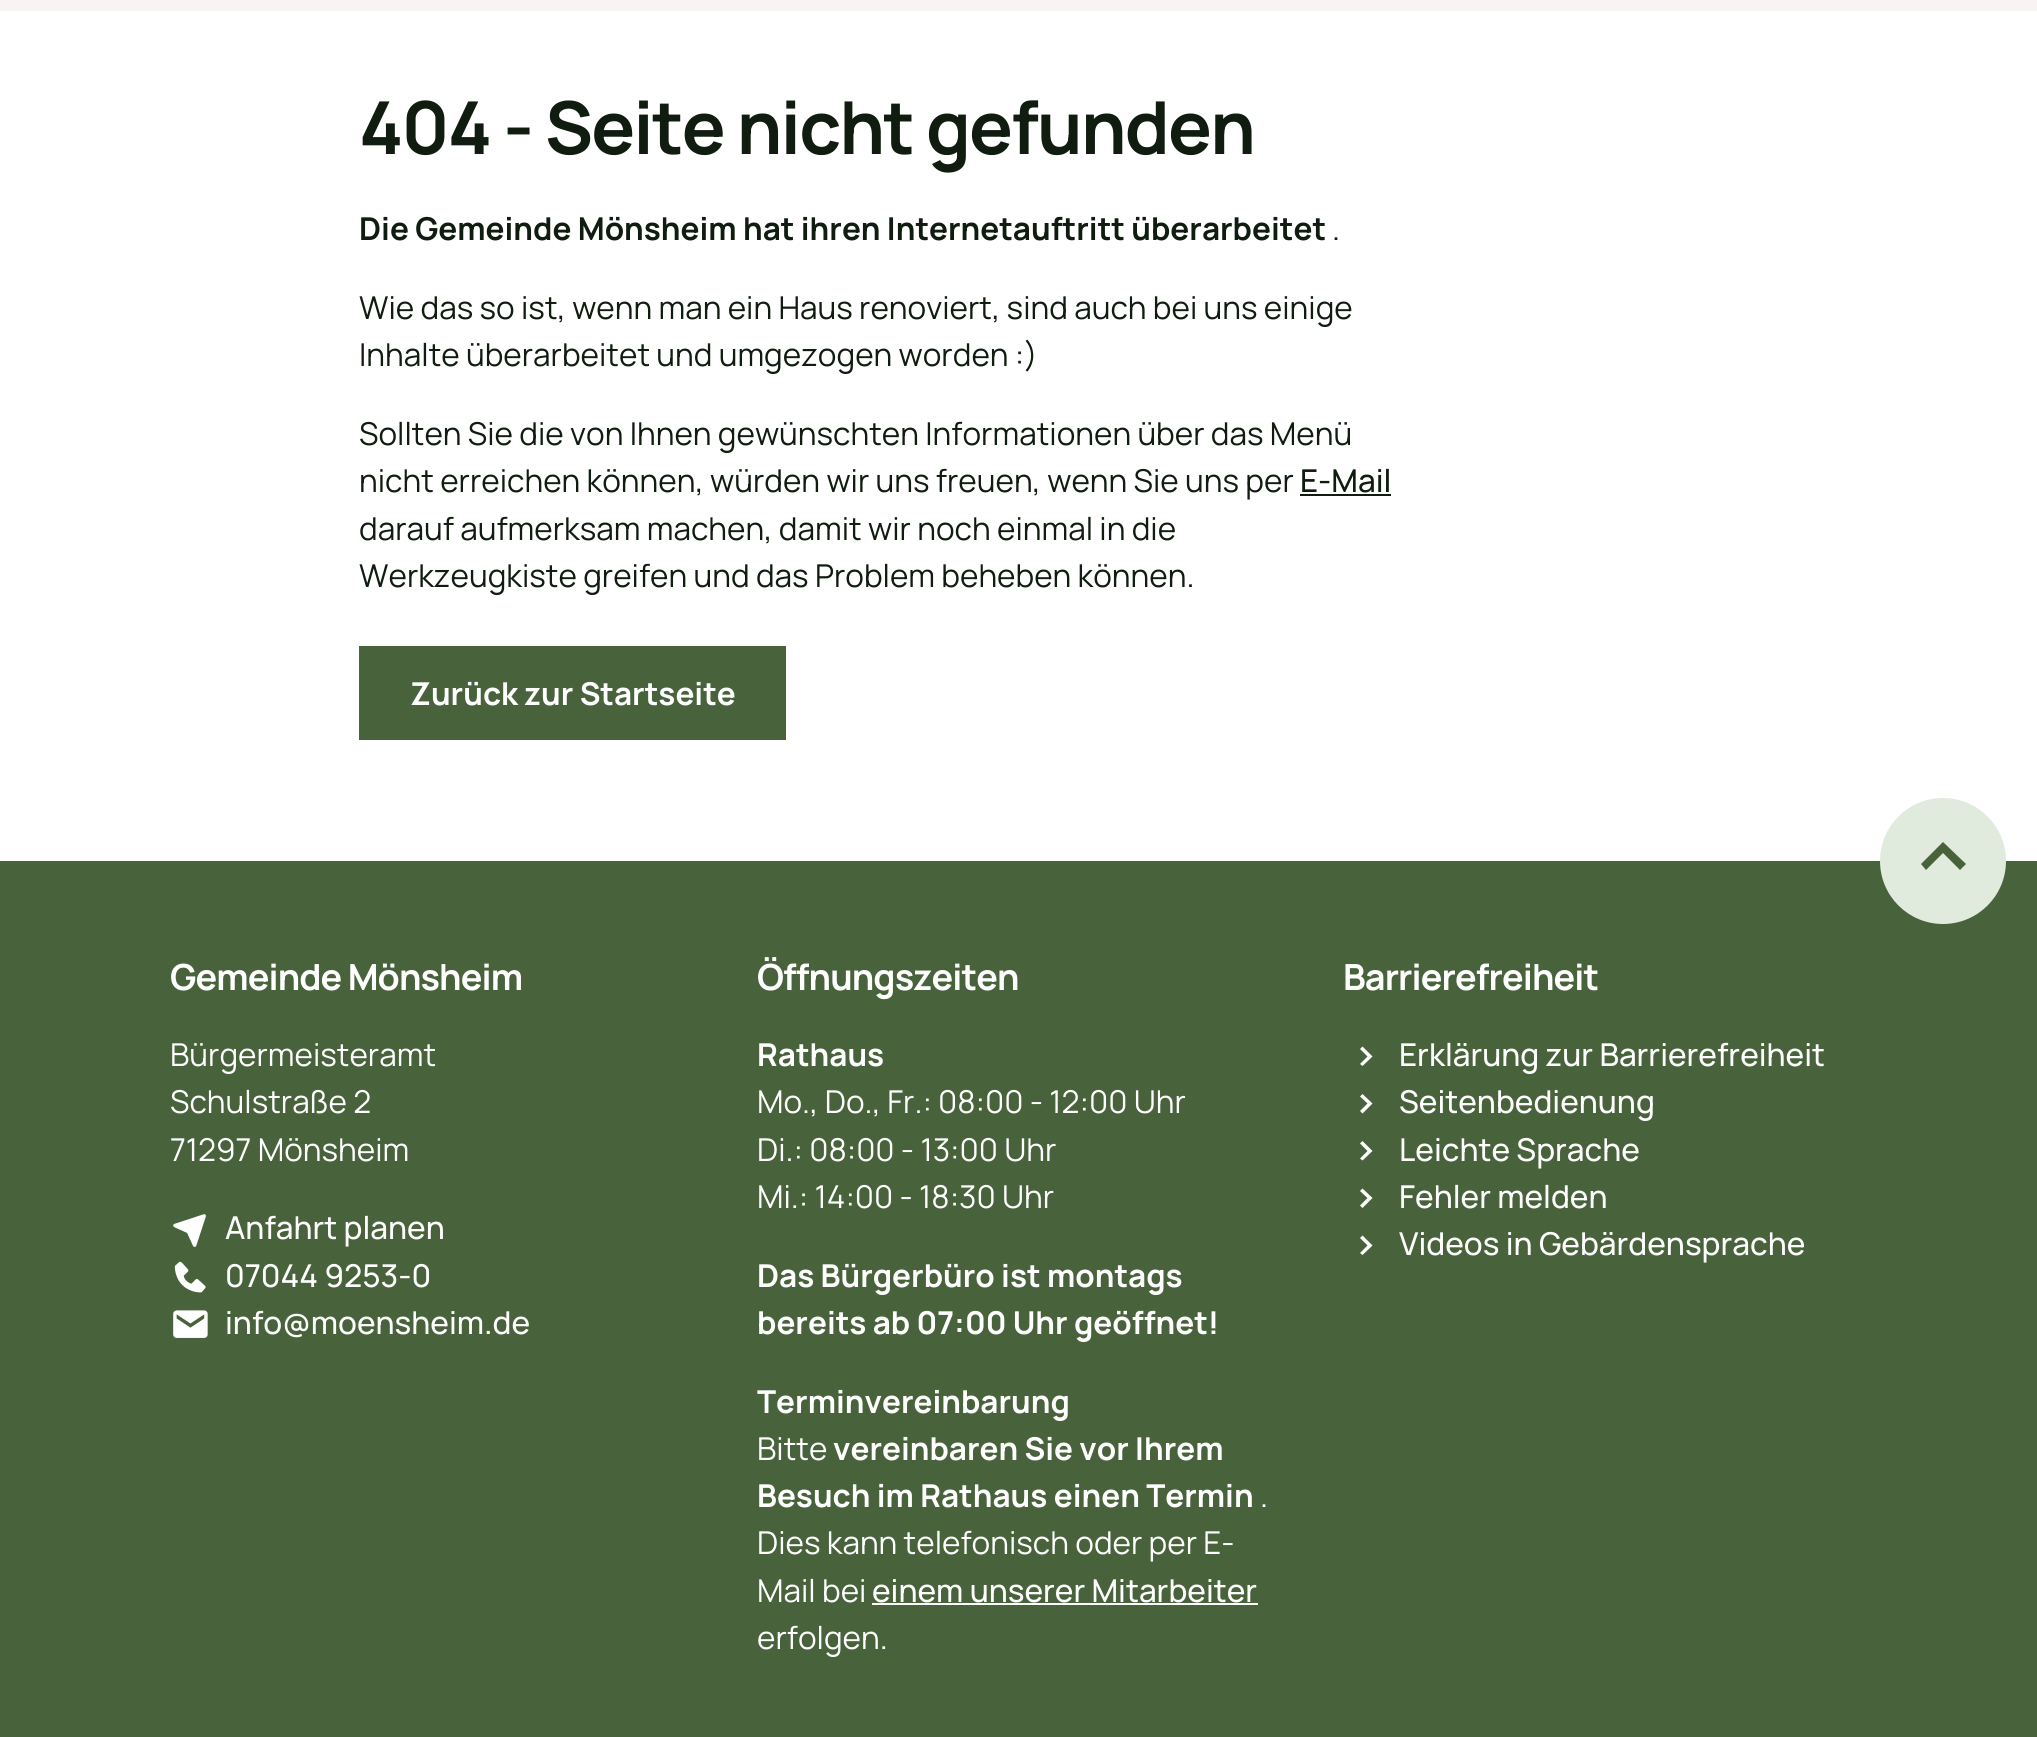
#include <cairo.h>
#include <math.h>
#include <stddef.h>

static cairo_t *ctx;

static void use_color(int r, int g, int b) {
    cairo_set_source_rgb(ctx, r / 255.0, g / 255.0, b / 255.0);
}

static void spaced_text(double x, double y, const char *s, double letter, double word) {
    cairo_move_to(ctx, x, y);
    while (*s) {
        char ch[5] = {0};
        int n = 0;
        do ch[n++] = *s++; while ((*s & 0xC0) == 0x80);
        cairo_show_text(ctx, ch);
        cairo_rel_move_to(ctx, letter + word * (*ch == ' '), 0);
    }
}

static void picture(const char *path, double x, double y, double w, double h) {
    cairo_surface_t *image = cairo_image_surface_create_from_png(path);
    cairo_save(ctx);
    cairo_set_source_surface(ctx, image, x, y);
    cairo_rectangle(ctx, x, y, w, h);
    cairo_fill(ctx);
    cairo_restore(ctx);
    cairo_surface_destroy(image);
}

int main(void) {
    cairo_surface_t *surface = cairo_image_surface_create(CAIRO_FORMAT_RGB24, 2037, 1737);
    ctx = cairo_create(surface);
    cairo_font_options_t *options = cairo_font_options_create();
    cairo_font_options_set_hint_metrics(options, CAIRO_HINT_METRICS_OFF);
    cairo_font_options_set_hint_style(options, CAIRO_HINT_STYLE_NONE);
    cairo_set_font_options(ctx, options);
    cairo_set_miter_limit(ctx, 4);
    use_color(255, 255, 255);
    cairo_paint(ctx);
    use_color(247, 244, 243);
    cairo_rectangle(ctx, 0, 0, 2037, 11);
    cairo_fill(ctx);
    cairo_select_font_face(ctx, "Manrope ExtraLight", CAIRO_FONT_SLANT_NORMAL, CAIRO_FONT_WEIGHT_NORMAL);
    cairo_set_font_size(ctx, 73);
    use_color(16, 28, 16);
    spaced_text(359, 154, "404 - Seite nicht gefunden", -1.8, 0);
    cairo_set_font_size(ctx, 31.5);
    cairo_move_to(ctx, 359, 240);
    cairo_show_text(ctx, "Die Gemeinde Mönsheim hat ihren Internetauftritt überarbeitet");
    cairo_select_font_face(ctx, "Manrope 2 ExtraLight", CAIRO_FONT_SLANT_NORMAL, CAIRO_FONT_WEIGHT_NORMAL);
    cairo_move_to(ctx, 1332, 240);
    cairo_show_text(ctx, ".");
    cairo_move_to(ctx, 359, 319);
    cairo_show_text(ctx, "Wie das so ist, wenn man ein Haus renoviert, sind auch bei uns einige");
    cairo_move_to(ctx, 359, 366);
    cairo_show_text(ctx, "Inhalte überarbeitet und umgezogen worden :)");
    cairo_move_to(ctx, 359, 445);
    cairo_show_text(ctx, "Sollten Sie die von Ihnen gewünschten Informationen über das Menü");
    cairo_move_to(ctx, 359, 492);
    cairo_show_text(ctx, "nicht erreichen können, würden wir uns freuen, wenn Sie uns per");
    cairo_select_font_face(ctx, "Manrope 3 ExtraLight", CAIRO_FONT_SLANT_NORMAL, CAIRO_FONT_WEIGHT_NORMAL);
    cairo_move_to(ctx, 1300, 492);
    cairo_show_text(ctx, "E-Mail");
    cairo_rectangle(ctx, 1300, 494, 91, 2);
    cairo_fill(ctx);
    cairo_select_font_face(ctx, "Manrope 2 ExtraLight", CAIRO_FONT_SLANT_NORMAL, CAIRO_FONT_WEIGHT_NORMAL);
    cairo_move_to(ctx, 359, 540);
    cairo_show_text(ctx, "darauf aufmerksam machen, damit wir noch einmal in die");
    cairo_move_to(ctx, 359, 587);
    cairo_show_text(ctx, "Werkzeugkiste greifen und das Problem beheben können.");
    use_color(72, 99, 59);
    cairo_rectangle(ctx, 359, 646, 427, 94);
    cairo_fill(ctx);
    cairo_select_font_face(ctx, "Manrope ExtraLight", CAIRO_FONT_SLANT_NORMAL, CAIRO_FONT_WEIGHT_NORMAL);
    use_color(255, 255, 255);
    cairo_move_to(ctx, 410, 705);
    cairo_show_text(ctx, "Zurück zur Startseite");
    use_color(72, 99, 59);
    cairo_rectangle(ctx, 0, 861, 2037, 876);
    cairo_fill(ctx);
    use_color(224, 234, 221);
    cairo_arc(ctx, 1943, 861, 63, 0, 2 * M_PI);
    cairo_fill(ctx);
    use_color(72, 99, 59);
    cairo_new_path(ctx);
    cairo_move_to(ctx, 1921, 864);
    cairo_line_to(ctx, 1926, 870);
    cairo_line_to(ctx, 1943, 853);
    cairo_line_to(ctx, 1960, 870);
    cairo_line_to(ctx, 1966, 864);
    cairo_line_to(ctx, 1943, 842);
    cairo_close_path(ctx);
    cairo_fill(ctx);
    cairo_set_font_size(ctx, 36);
    use_color(255, 255, 255);
    spaced_text(170, 990, "Gemeinde Mönsheim", -0.9, 0);
    cairo_select_font_face(ctx, "Manrope 2 ExtraLight", CAIRO_FONT_SLANT_NORMAL, CAIRO_FONT_WEIGHT_NORMAL);
    cairo_set_font_size(ctx, 31.5);
    cairo_move_to(ctx, 170, 1066);
    cairo_show_text(ctx, "Bürgermeisteramt");
    cairo_move_to(ctx, 170, 1113);
    cairo_show_text(ctx, "Schulstraße 2");
    cairo_move_to(ctx, 170, 1161);
    cairo_show_text(ctx, "71297 Mönsheim");
    picture("img1.png", 173, 1214, 33, 33);
    cairo_select_font_face(ctx, "Manrope 3 ExtraLight", CAIRO_FONT_SLANT_NORMAL, CAIRO_FONT_WEIGHT_NORMAL);
    cairo_move_to(ctx, 225, 1239);
    cairo_show_text(ctx, "Anfahrt planen");
    picture("img2.png", 174, 1261, 32, 32);
    cairo_move_to(ctx, 225, 1287);
    cairo_show_text(ctx, "07044 9253-0");
    picture("img3.png", 173, 1310, 35, 28);
    cairo_move_to(ctx, 225, 1334);
    cairo_show_text(ctx, "info@moensheim.de");
    cairo_select_font_face(ctx, "Manrope ExtraLight", CAIRO_FONT_SLANT_NORMAL, CAIRO_FONT_WEIGHT_NORMAL);
    cairo_set_font_size(ctx, 36);
    spaced_text(757, 990, "Öffnungszeiten", -0.9, 0);
    cairo_set_font_size(ctx, 31.5);
    cairo_move_to(ctx, 757, 1066);
    cairo_show_text(ctx, "Rathaus");
    cairo_select_font_face(ctx, "Manrope 2 ExtraLight", CAIRO_FONT_SLANT_NORMAL, CAIRO_FONT_WEIGHT_NORMAL);
    cairo_move_to(ctx, 757, 1113);
    cairo_show_text(ctx, "Mo., Do., Fr.: 08:00 - 12:00 Uhr");
    cairo_move_to(ctx, 757, 1161);
    cairo_show_text(ctx, "Di.: 08:00 - 13:00 Uhr");
    cairo_move_to(ctx, 757, 1208);
    cairo_show_text(ctx, "Mi.: 14:00 - 18:30 Uhr");
    cairo_select_font_face(ctx, "Manrope ExtraLight", CAIRO_FONT_SLANT_NORMAL, CAIRO_FONT_WEIGHT_NORMAL);
    cairo_move_to(ctx, 757, 1287);
    cairo_show_text(ctx, "Das Bürgerbüro ist montags");
    cairo_move_to(ctx, 757, 1334);
    cairo_show_text(ctx, "bereits ab 07:00 Uhr geöffnet!");
    cairo_move_to(ctx, 757, 1413);
    cairo_show_text(ctx, "Terminvereinbarung");
    cairo_select_font_face(ctx, "Manrope 2 ExtraLight", CAIRO_FONT_SLANT_NORMAL, CAIRO_FONT_WEIGHT_NORMAL);
    cairo_move_to(ctx, 757, 1460);
    cairo_show_text(ctx, "Bitte");
    cairo_select_font_face(ctx, "Manrope ExtraLight", CAIRO_FONT_SLANT_NORMAL, CAIRO_FONT_WEIGHT_NORMAL);
    cairo_move_to(ctx, 833, 1460);
    cairo_show_text(ctx, "vereinbaren Sie vor Ihrem");
    cairo_move_to(ctx, 757, 1507);
    cairo_show_text(ctx, "Besuch im Rathaus einen Termin");
    cairo_select_font_face(ctx, "Manrope 2 ExtraLight", CAIRO_FONT_SLANT_NORMAL, CAIRO_FONT_WEIGHT_NORMAL);
    cairo_move_to(ctx, 1260, 1507);
    cairo_show_text(ctx, ".");
    cairo_move_to(ctx, 757, 1554);
    cairo_show_text(ctx, "Dies kann telefonisch oder per E-");
    cairo_move_to(ctx, 757, 1602);
    cairo_show_text(ctx, "Mail bei");
    cairo_select_font_face(ctx, "Manrope 3 ExtraLight", CAIRO_FONT_SLANT_NORMAL, CAIRO_FONT_WEIGHT_NORMAL);
    cairo_move_to(ctx, 872, 1602);
    cairo_show_text(ctx, "einem unserer Mitarbeiter");
    cairo_rectangle(ctx, 872, 1603, 386, 2);
    cairo_fill(ctx);
    cairo_select_font_face(ctx, "Manrope 2 ExtraLight", CAIRO_FONT_SLANT_NORMAL, CAIRO_FONT_WEIGHT_NORMAL);
    cairo_move_to(ctx, 757, 1649);
    cairo_show_text(ctx, "erfolgen.");
    cairo_select_font_face(ctx, "Manrope ExtraLight", CAIRO_FONT_SLANT_NORMAL, CAIRO_FONT_WEIGHT_NORMAL);
    cairo_set_font_size(ctx, 36);
    spaced_text(1343, 990, "Barrierefreiheit", -0.9, 0);
    cairo_new_path(ctx);
    cairo_move_to(ctx, 1362.5, 1066);
    cairo_line_to(ctx, 1372.5, 1056.5);
    cairo_line_to(ctx, 1362.5, 1046.5);
    cairo_line_to(ctx, 1360, 1049);
    cairo_line_to(ctx, 1367.5, 1056.5);
    cairo_line_to(ctx, 1360, 1064);
    cairo_close_path(ctx);
    cairo_fill(ctx);
    cairo_select_font_face(ctx, "Manrope 3 ExtraLight", CAIRO_FONT_SLANT_NORMAL, CAIRO_FONT_WEIGHT_NORMAL);
    cairo_set_font_size(ctx, 31.5);
    cairo_move_to(ctx, 1399, 1066);
    cairo_show_text(ctx, "Erklärung zur Barrierefreiheit");
    cairo_new_path(ctx);
    cairo_move_to(ctx, 1362.5, 1113.5);
    cairo_line_to(ctx, 1372.5, 1103.5);
    cairo_line_to(ctx, 1362.5, 1094);
    cairo_line_to(ctx, 1360, 1096.5);
    cairo_line_to(ctx, 1367.5, 1103.5);
    cairo_line_to(ctx, 1360, 1111);
    cairo_close_path(ctx);
    cairo_fill(ctx);
    cairo_move_to(ctx, 1399, 1113);
    cairo_show_text(ctx, "Seitenbedienung");
    cairo_new_path(ctx);
    cairo_move_to(ctx, 1362.5, 1160.5);
    cairo_line_to(ctx, 1372.5, 1151);
    cairo_line_to(ctx, 1362.5, 1141);
    cairo_line_to(ctx, 1360, 1143.5);
    cairo_line_to(ctx, 1367.5, 1151);
    cairo_line_to(ctx, 1360, 1158.5);
    cairo_close_path(ctx);
    cairo_fill(ctx);
    cairo_move_to(ctx, 1399, 1161);
    cairo_show_text(ctx, "Leichte Sprache");
    cairo_new_path(ctx);
    cairo_move_to(ctx, 1362.5, 1208);
    cairo_line_to(ctx, 1372.5, 1198);
    cairo_line_to(ctx, 1362.5, 1188.5);
    cairo_line_to(ctx, 1360, 1191);
    cairo_line_to(ctx, 1367.5, 1198);
    cairo_line_to(ctx, 1360, 1205.5);
    cairo_close_path(ctx);
    cairo_fill(ctx);
    cairo_move_to(ctx, 1399, 1208);
    cairo_show_text(ctx, "Fehler melden");
    cairo_new_path(ctx);
    cairo_move_to(ctx, 1362.5, 1255);
    cairo_line_to(ctx, 1372.5, 1245.5);
    cairo_line_to(ctx, 1362.5, 1235.5);
    cairo_line_to(ctx, 1360, 1238);
    cairo_line_to(ctx, 1367.5, 1245.5);
    cairo_line_to(ctx, 1360, 1253);
    cairo_close_path(ctx);
    cairo_fill(ctx);
    cairo_move_to(ctx, 1399, 1255);
    cairo_show_text(ctx, "Videos in Gebärdensprache");
    cairo_surface_write_to_png(surface, "result.png");
    cairo_font_options_destroy(options);
    cairo_destroy(ctx);
    cairo_surface_destroy(surface);
    return 0;
}
